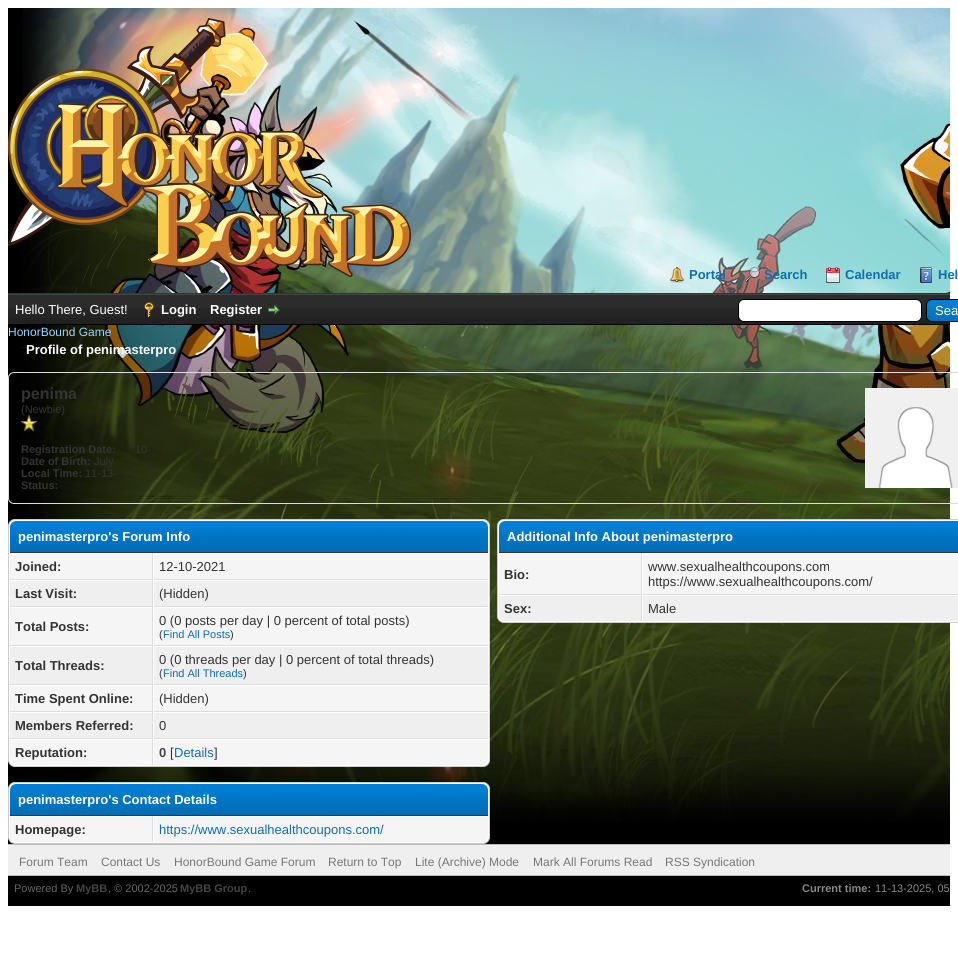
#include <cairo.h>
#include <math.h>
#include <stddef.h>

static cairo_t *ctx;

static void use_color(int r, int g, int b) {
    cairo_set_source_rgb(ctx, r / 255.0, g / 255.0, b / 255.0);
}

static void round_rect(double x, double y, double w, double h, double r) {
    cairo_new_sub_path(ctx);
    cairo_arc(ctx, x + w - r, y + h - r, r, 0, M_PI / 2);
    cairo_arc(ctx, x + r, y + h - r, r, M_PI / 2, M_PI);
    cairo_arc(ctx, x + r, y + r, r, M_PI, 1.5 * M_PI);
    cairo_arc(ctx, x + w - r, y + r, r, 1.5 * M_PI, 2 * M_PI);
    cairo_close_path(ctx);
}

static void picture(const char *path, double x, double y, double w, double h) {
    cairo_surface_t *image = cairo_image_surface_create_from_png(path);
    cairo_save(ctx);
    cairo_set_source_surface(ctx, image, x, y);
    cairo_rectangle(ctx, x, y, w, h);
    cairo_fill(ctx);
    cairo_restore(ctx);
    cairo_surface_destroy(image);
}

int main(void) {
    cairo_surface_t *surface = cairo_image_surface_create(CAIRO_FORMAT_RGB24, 958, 957);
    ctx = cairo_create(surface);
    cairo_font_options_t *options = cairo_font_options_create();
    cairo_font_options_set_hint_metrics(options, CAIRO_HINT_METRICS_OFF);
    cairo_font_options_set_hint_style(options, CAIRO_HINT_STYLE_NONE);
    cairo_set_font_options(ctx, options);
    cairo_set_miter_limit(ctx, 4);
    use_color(255, 255, 255);
    cairo_paint(ctx);
    use_color(0, 0, 0);
    cairo_rectangle(ctx, 8, 8, 942, 898);
    cairo_fill(ctx);
    picture("img1.png", 22, 8, 928, 813);
    use_color(38, 60, 48);
    cairo_rectangle(ctx, 8, 293, 942, 1);
    cairo_fill(ctx);
    picture("img2.png", 8, 18, 403, 259);
    picture("img3.png", 670, 267, 14, 16);
    cairo_select_font_face(ctx, "Liberation Sans", CAIRO_FONT_SLANT_NORMAL, CAIRO_FONT_WEIGHT_BOLD);
    cairo_set_font_size(ctx, 13);
    use_color(15, 110, 174);
    cairo_move_to(ctx, 689, 279);
    cairo_show_text(ctx, "Portal");
    picture("img4.png", 745, 267, 15, 15);
    cairo_move_to(ctx, 764, 279);
    cairo_show_text(ctx, "Search");
    picture("img5.png", 826, 267, 14, 16);
    cairo_move_to(ctx, 845, 279);
    cairo_show_text(ctx, "Calendar");
    picture("img6.png", 920, 267, 12, 16);
    cairo_move_to(ctx, 938, 279);
    cairo_show_text(ctx, "Hel");
    picture("img7.png", 8, 295, 942, 29);
    use_color(68, 68, 68);
    cairo_rectangle(ctx, 8, 294, 942, 1);
    cairo_fill(ctx);
    use_color(0, 0, 0);
    cairo_rectangle(ctx, 28, 324, 922, 1);
    cairo_fill(ctx);
    cairo_select_font_face(ctx, "Liberation Sans", CAIRO_FONT_SLANT_NORMAL, CAIRO_FONT_WEIGHT_NORMAL);
    use_color(255, 255, 255);
    cairo_move_to(ctx, 15, 314);
    cairo_show_text(ctx, "Hello There, Guest!");
    picture("img8.png", 144, 302, 10, 15);
    cairo_select_font_face(ctx, "Liberation Sans", CAIRO_FONT_SLANT_NORMAL, CAIRO_FONT_WEIGHT_BOLD);
    cairo_move_to(ctx, 161, 314);
    cairo_show_text(ctx, "Login");
    cairo_move_to(ctx, 210, 314);
    cairo_show_text(ctx, "Register");
    picture("img9.png", 268, 305, 12, 10);
    round_rect(738.5, 299.5, 183, 22, 5.5);
    cairo_fill_preserve(ctx);
    use_color(0, 0, 0);
    cairo_set_line_width(ctx, 1);
    cairo_stroke(ctx);
    picture("img10.png", 926, 300, 32, 22);
    round_rect(926.5, 299.5, 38, 22, 5.5);
    cairo_stroke(ctx);
    cairo_select_font_face(ctx, "Liberation Sans", CAIRO_FONT_SLANT_NORMAL, CAIRO_FONT_WEIGHT_NORMAL);
    use_color(255, 255, 255);
    cairo_move_to(ctx, 935, 315);
    cairo_show_text(ctx, "Sea");
    cairo_set_font_size(ctx, 12);
    use_color(153, 214, 255);
    cairo_move_to(ctx, 8, 336);
    cairo_show_text(ctx, "HonorBound Game");
    use_color(35, 35, 35);
    cairo_rectangle(ctx, 22, 347, 1, 1);
    cairo_fill(ctx);
    cairo_select_font_face(ctx, "Liberation Sans", CAIRO_FONT_SLANT_NORMAL, CAIRO_FONT_WEIGHT_BOLD);
    cairo_set_font_size(ctx, 13);
    use_color(255, 255, 255);
    cairo_move_to(ctx, 26, 354);
    cairo_show_text(ctx, "Profile of penimasterpro");
    round_rect(8.5, 372.5, 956, 131, 5.5);
    use_color(221, 221, 221);
    cairo_stroke(ctx);
    cairo_set_font_size(ctx, 16);
    use_color(51, 51, 51);
    cairo_move_to(ctx, 21, 399);
    cairo_show_text(ctx, "penima");
    cairo_select_font_face(ctx, "Liberation Sans", CAIRO_FONT_SLANT_NORMAL, CAIRO_FONT_WEIGHT_NORMAL);
    cairo_set_font_size(ctx, 11);
    cairo_move_to(ctx, 21, 413);
    cairo_show_text(ctx, "(Newbie)");
    picture("img11.png", 21, 415, 16, 16);
    cairo_select_font_face(ctx, "Liberation Sans", CAIRO_FONT_SLANT_NORMAL, CAIRO_FONT_WEIGHT_BOLD);
    cairo_move_to(ctx, 21, 453);
    cairo_show_text(ctx, "Registration Date:");
    cairo_select_font_face(ctx, "Liberation Sans", CAIRO_FONT_SLANT_NORMAL, CAIRO_FONT_WEIGHT_NORMAL);
    cairo_move_to(ctx, 135, 453);
    cairo_show_text(ctx, "10-");
    cairo_select_font_face(ctx, "Liberation Sans", CAIRO_FONT_SLANT_NORMAL, CAIRO_FONT_WEIGHT_BOLD);
    cairo_move_to(ctx, 21, 465);
    cairo_show_text(ctx, "Date of Birth:");
    cairo_select_font_face(ctx, "Liberation Sans", CAIRO_FONT_SLANT_NORMAL, CAIRO_FONT_WEIGHT_NORMAL);
    cairo_move_to(ctx, 94, 465);
    cairo_show_text(ctx, "July");
    cairo_select_font_face(ctx, "Liberation Sans", CAIRO_FONT_SLANT_NORMAL, CAIRO_FONT_WEIGHT_BOLD);
    cairo_move_to(ctx, 21, 477);
    cairo_show_text(ctx, "Local Time:");
    cairo_select_font_face(ctx, "Liberation Sans", CAIRO_FONT_SLANT_NORMAL, CAIRO_FONT_WEIGHT_NORMAL);
    cairo_move_to(ctx, 85, 477);
    cairo_show_text(ctx, "11-13-");
    cairo_select_font_face(ctx, "Liberation Sans", CAIRO_FONT_SLANT_NORMAL, CAIRO_FONT_WEIGHT_BOLD);
    cairo_move_to(ctx, 21, 489);
    cairo_show_text(ctx, "Status:");
    picture("img12.png", 865, 388, 93, 100);
    use_color(255, 255, 255);
    round_rect(8.5, 519.5, 481, 247, 6.5);
    cairo_fill_preserve(ctx);
    use_color(204, 204, 204);
    cairo_stroke(ctx);
    picture("img13.png", 10, 521, 478, 31);
    use_color(38, 60, 48);
    cairo_rectangle(ctx, 10, 552, 478, 1);
    cairo_fill(ctx);
    cairo_set_font_size(ctx, 13);
    use_color(255, 255, 255);
    cairo_move_to(ctx, 18, 541);
    cairo_show_text(ctx, "penimasterpro's Forum Info");
    use_color(245, 245, 245);
    cairo_rectangle(ctx, 10, 554, 142, 25);
    cairo_fill(ctx);
    use_color(221, 221, 221);
    cairo_rectangle(ctx, 152, 553, 1, 186);
    cairo_fill(ctx);
    cairo_rectangle(ctx, 10, 579, 478, 1);
    cairo_fill(ctx);
    use_color(51, 51, 51);
    cairo_move_to(ctx, 15, 571);
    cairo_show_text(ctx, "Joined:");
    use_color(245, 245, 245);
    cairo_rectangle(ctx, 154, 554, 334, 25);
    cairo_fill(ctx);
    use_color(255, 255, 255);
    cairo_rectangle(ctx, 153, 579, 1, 1);
    cairo_fill(ctx);
    cairo_select_font_face(ctx, "Liberation Sans", CAIRO_FONT_SLANT_NORMAL, CAIRO_FONT_WEIGHT_NORMAL);
    use_color(51, 51, 51);
    cairo_move_to(ctx, 159, 571);
    cairo_show_text(ctx, "12-10-2021");
    use_color(239, 239, 239);
    cairo_rectangle(ctx, 10, 581, 142, 25);
    cairo_fill(ctx);
    use_color(221, 221, 221);
    cairo_rectangle(ctx, 10, 606, 478, 1);
    cairo_fill(ctx);
    cairo_select_font_face(ctx, "Liberation Sans", CAIRO_FONT_SLANT_NORMAL, CAIRO_FONT_WEIGHT_BOLD);
    use_color(51, 51, 51);
    cairo_move_to(ctx, 15, 598);
    cairo_show_text(ctx, "Last Visit:");
    use_color(239, 239, 239);
    cairo_rectangle(ctx, 154, 581, 334, 25);
    cairo_fill(ctx);
    use_color(255, 255, 255);
    cairo_rectangle(ctx, 153, 606, 1, 1);
    cairo_fill(ctx);
    cairo_select_font_face(ctx, "Liberation Sans", CAIRO_FONT_SLANT_NORMAL, CAIRO_FONT_WEIGHT_NORMAL);
    use_color(51, 51, 51);
    cairo_move_to(ctx, 159, 598);
    cairo_show_text(ctx, "(Hidden)");
    use_color(245, 245, 245);
    cairo_rectangle(ctx, 10, 608, 142, 37);
    cairo_fill(ctx);
    use_color(221, 221, 221);
    cairo_rectangle(ctx, 10, 645, 478, 1);
    cairo_fill(ctx);
    cairo_select_font_face(ctx, "Liberation Sans", CAIRO_FONT_SLANT_NORMAL, CAIRO_FONT_WEIGHT_BOLD);
    use_color(51, 51, 51);
    cairo_move_to(ctx, 15, 631);
    cairo_show_text(ctx, "Total Posts:");
    use_color(245, 245, 245);
    cairo_rectangle(ctx, 154, 608, 334, 37);
    cairo_fill(ctx);
    use_color(255, 255, 255);
    cairo_rectangle(ctx, 153, 645, 1, 1);
    cairo_fill(ctx);
    cairo_select_font_face(ctx, "Liberation Sans", CAIRO_FONT_SLANT_NORMAL, CAIRO_FONT_WEIGHT_NORMAL);
    use_color(51, 51, 51);
    cairo_move_to(ctx, 159, 625);
    cairo_show_text(ctx, "0 (0 posts per day | 0 percent of total posts)");
    cairo_set_font_size(ctx, 11);
    cairo_move_to(ctx, 159, 638);
    cairo_show_text(ctx, "(");
    use_color(15, 110, 174);
    cairo_move_to(ctx, 163, 638);
    cairo_show_text(ctx, "Find All Posts");
    use_color(51, 51, 51);
    cairo_move_to(ctx, 230, 638);
    cairo_show_text(ctx, ")");
    use_color(239, 239, 239);
    cairo_rectangle(ctx, 10, 647, 142, 37);
    cairo_fill(ctx);
    use_color(221, 221, 221);
    cairo_rectangle(ctx, 10, 684, 478, 1);
    cairo_fill(ctx);
    cairo_select_font_face(ctx, "Liberation Sans", CAIRO_FONT_SLANT_NORMAL, CAIRO_FONT_WEIGHT_BOLD);
    cairo_set_font_size(ctx, 13);
    use_color(51, 51, 51);
    cairo_move_to(ctx, 15, 670);
    cairo_show_text(ctx, "Total Threads:");
    use_color(239, 239, 239);
    cairo_rectangle(ctx, 154, 647, 334, 37);
    cairo_fill(ctx);
    use_color(255, 255, 255);
    cairo_rectangle(ctx, 153, 684, 1, 1);
    cairo_fill(ctx);
    cairo_select_font_face(ctx, "Liberation Sans", CAIRO_FONT_SLANT_NORMAL, CAIRO_FONT_WEIGHT_NORMAL);
    use_color(51, 51, 51);
    cairo_move_to(ctx, 159, 664);
    cairo_show_text(ctx, "0 (0 threads per day | 0 percent of total threads)");
    cairo_set_font_size(ctx, 11);
    cairo_move_to(ctx, 159, 677);
    cairo_show_text(ctx, "(");
    use_color(15, 110, 174);
    cairo_move_to(ctx, 163, 677);
    cairo_show_text(ctx, "Find All Threads");
    use_color(51, 51, 51);
    cairo_move_to(ctx, 243, 677);
    cairo_show_text(ctx, ")");
    use_color(245, 245, 245);
    cairo_rectangle(ctx, 10, 686, 142, 25);
    cairo_fill(ctx);
    use_color(221, 221, 221);
    cairo_rectangle(ctx, 10, 711, 478, 1);
    cairo_fill(ctx);
    cairo_select_font_face(ctx, "Liberation Sans", CAIRO_FONT_SLANT_NORMAL, CAIRO_FONT_WEIGHT_BOLD);
    cairo_set_font_size(ctx, 13);
    use_color(51, 51, 51);
    cairo_move_to(ctx, 15, 703);
    cairo_show_text(ctx, "Time Spent Online:");
    use_color(245, 245, 245);
    cairo_rectangle(ctx, 154, 686, 334, 25);
    cairo_fill(ctx);
    use_color(255, 255, 255);
    cairo_rectangle(ctx, 153, 711, 1, 1);
    cairo_fill(ctx);
    cairo_select_font_face(ctx, "Liberation Sans", CAIRO_FONT_SLANT_NORMAL, CAIRO_FONT_WEIGHT_NORMAL);
    use_color(51, 51, 51);
    cairo_move_to(ctx, 159, 703);
    cairo_show_text(ctx, "(Hidden)");
    use_color(239, 239, 239);
    cairo_rectangle(ctx, 10, 713, 142, 25);
    cairo_fill(ctx);
    use_color(221, 221, 221);
    cairo_rectangle(ctx, 10, 738, 478, 1);
    cairo_fill(ctx);
    cairo_select_font_face(ctx, "Liberation Sans", CAIRO_FONT_SLANT_NORMAL, CAIRO_FONT_WEIGHT_BOLD);
    use_color(51, 51, 51);
    cairo_move_to(ctx, 15, 730);
    cairo_show_text(ctx, "Members Referred:");
    use_color(239, 239, 239);
    cairo_rectangle(ctx, 154, 713, 334, 25);
    cairo_fill(ctx);
    use_color(255, 255, 255);
    cairo_rectangle(ctx, 153, 738, 1, 1);
    cairo_fill(ctx);
    cairo_select_font_face(ctx, "Liberation Sans", CAIRO_FONT_SLANT_NORMAL, CAIRO_FONT_WEIGHT_NORMAL);
    use_color(51, 51, 51);
    cairo_move_to(ctx, 159, 730);
    cairo_show_text(ctx, "0");
    use_color(245, 245, 245);
    cairo_new_path(ctx);
    cairo_move_to(ctx, 10, 739);
    cairo_line_to(ctx, 153, 739);
    cairo_line_to(ctx, 153, 765);
    cairo_line_to(ctx, 16, 765);
    cairo_curve_to(ctx, 12.5, 765, 10, 762.5, 10, 759);
    cairo_close_path(ctx);
    cairo_fill(ctx);
    use_color(255, 255, 255);
    cairo_new_path(ctx);
    cairo_move_to(ctx, 10, 739);
    cairo_line_to(ctx, 10, 740);
    cairo_line_to(ctx, 152, 740);
    cairo_line_to(ctx, 153, 739);
    cairo_close_path(ctx);
    cairo_fill(ctx);
    use_color(221, 221, 221);
    cairo_new_path(ctx);
    cairo_move_to(ctx, 153, 739);
    cairo_line_to(ctx, 152, 740);
    cairo_line_to(ctx, 152, 765);
    cairo_line_to(ctx, 153, 765);
    cairo_close_path(ctx);
    cairo_fill(ctx);
    cairo_select_font_face(ctx, "Liberation Sans", CAIRO_FONT_SLANT_NORMAL, CAIRO_FONT_WEIGHT_BOLD);
    use_color(51, 51, 51);
    cairo_move_to(ctx, 15, 757);
    cairo_show_text(ctx, "Reputation:");
    use_color(245, 245, 245);
    cairo_new_path(ctx);
    cairo_move_to(ctx, 153, 739);
    cairo_line_to(ctx, 488, 739);
    cairo_line_to(ctx, 488, 759);
    cairo_curve_to(ctx, 488, 762.5, 485.5, 765, 482, 765);
    cairo_line_to(ctx, 153, 765);
    cairo_close_path(ctx);
    cairo_fill(ctx);
    use_color(255, 255, 255);
    cairo_rectangle(ctx, 153, 739, 335, 1);
    cairo_fill(ctx);
    cairo_rectangle(ctx, 153, 739, 1, 26);
    cairo_fill(ctx);
    use_color(68, 68, 68);
    cairo_move_to(ctx, 159, 757);
    cairo_show_text(ctx, "0");
    cairo_select_font_face(ctx, "Liberation Sans", CAIRO_FONT_SLANT_NORMAL, CAIRO_FONT_WEIGHT_NORMAL);
    use_color(51, 51, 51);
    cairo_move_to(ctx, 170, 757);
    cairo_show_text(ctx, "[");
    use_color(15, 110, 174);
    cairo_move_to(ctx, 174, 757);
    cairo_show_text(ctx, "Details");
    use_color(51, 51, 51);
    cairo_move_to(ctx, 214, 757);
    cairo_show_text(ctx, "]");
    use_color(255, 255, 255);
    round_rect(8.5, 782.5, 481, 61, 6.5);
    cairo_fill_preserve(ctx);
    use_color(204, 204, 204);
    cairo_stroke(ctx);
    picture("img13.png", 10, 784, 478, 31);
    use_color(38, 60, 48);
    cairo_rectangle(ctx, 10, 815, 478, 1);
    cairo_fill(ctx);
    cairo_select_font_face(ctx, "Liberation Sans", CAIRO_FONT_SLANT_NORMAL, CAIRO_FONT_WEIGHT_BOLD);
    use_color(255, 255, 255);
    cairo_move_to(ctx, 18, 804);
    cairo_show_text(ctx, "penimasterpro's Contact Details");
    use_color(245, 245, 245);
    cairo_new_path(ctx);
    cairo_move_to(ctx, 10, 816);
    cairo_line_to(ctx, 153, 816);
    cairo_line_to(ctx, 153, 842);
    cairo_line_to(ctx, 16, 842);
    cairo_curve_to(ctx, 12.5, 842, 10, 839.5, 10, 836);
    cairo_close_path(ctx);
    cairo_fill(ctx);
    use_color(255, 255, 255);
    cairo_new_path(ctx);
    cairo_move_to(ctx, 10, 816);
    cairo_line_to(ctx, 10, 817);
    cairo_line_to(ctx, 152, 817);
    cairo_line_to(ctx, 153, 816);
    cairo_close_path(ctx);
    cairo_fill(ctx);
    use_color(221, 221, 221);
    cairo_new_path(ctx);
    cairo_move_to(ctx, 153, 816);
    cairo_line_to(ctx, 152, 817);
    cairo_line_to(ctx, 152, 842);
    cairo_line_to(ctx, 153, 842);
    cairo_close_path(ctx);
    cairo_fill(ctx);
    use_color(51, 51, 51);
    cairo_move_to(ctx, 15, 834);
    cairo_show_text(ctx, "Homepage:");
    use_color(245, 245, 245);
    cairo_new_path(ctx);
    cairo_move_to(ctx, 153, 816);
    cairo_line_to(ctx, 488, 816);
    cairo_line_to(ctx, 488, 836);
    cairo_curve_to(ctx, 488, 839.5, 485.5, 842, 482, 842);
    cairo_line_to(ctx, 153, 842);
    cairo_close_path(ctx);
    cairo_fill(ctx);
    use_color(255, 255, 255);
    cairo_rectangle(ctx, 153, 816, 335, 1);
    cairo_fill(ctx);
    cairo_rectangle(ctx, 153, 816, 1, 26);
    cairo_fill(ctx);
    cairo_select_font_face(ctx, "Liberation Sans", CAIRO_FONT_SLANT_NORMAL, CAIRO_FONT_WEIGHT_NORMAL);
    use_color(15, 110, 174);
    cairo_move_to(ctx, 159, 834);
    cairo_show_text(ctx, "https://www.sexualhealthcoupons.com/");
    use_color(255, 255, 255);
    round_rect(497.5, 519.5, 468, 103, 6.5);
    cairo_fill_preserve(ctx);
    use_color(204, 204, 204);
    cairo_stroke(ctx);
    picture("img14.png", 499, 521, 459, 31);
    use_color(38, 60, 48);
    cairo_rectangle(ctx, 499, 552, 459, 1);
    cairo_fill(ctx);
    cairo_select_font_face(ctx, "Liberation Sans", CAIRO_FONT_SLANT_NORMAL, CAIRO_FONT_WEIGHT_BOLD);
    use_color(255, 255, 255);
    cairo_move_to(ctx, 507, 541);
    cairo_show_text(ctx, "Additional Info About penimasterpro");
    use_color(245, 245, 245);
    cairo_rectangle(ctx, 499, 554, 142, 40);
    cairo_fill(ctx);
    use_color(221, 221, 221);
    cairo_rectangle(ctx, 641, 553, 1, 42);
    cairo_fill(ctx);
    cairo_rectangle(ctx, 499, 594, 459, 1);
    cairo_fill(ctx);
    use_color(51, 51, 51);
    cairo_move_to(ctx, 504, 579);
    cairo_show_text(ctx, "Bio:");
    use_color(245, 245, 245);
    cairo_rectangle(ctx, 643, 554, 315, 40);
    cairo_fill(ctx);
    use_color(255, 255, 255);
    cairo_rectangle(ctx, 642, 594, 1, 1);
    cairo_fill(ctx);
    cairo_select_font_face(ctx, "Liberation Sans", CAIRO_FONT_SLANT_NORMAL, CAIRO_FONT_WEIGHT_NORMAL);
    use_color(51, 51, 51);
    cairo_move_to(ctx, 648, 571);
    cairo_show_text(ctx, "www.sexualhealthcoupons.com");
    cairo_move_to(ctx, 648, 586);
    cairo_show_text(ctx, "https://www.sexualhealthcoupons.com/");
    use_color(239, 239, 239);
    cairo_new_path(ctx);
    cairo_move_to(ctx, 499, 595);
    cairo_line_to(ctx, 642, 595);
    cairo_line_to(ctx, 642, 621);
    cairo_line_to(ctx, 505, 621);
    cairo_curve_to(ctx, 501.5, 621, 499, 618.5, 499, 615);
    cairo_close_path(ctx);
    cairo_fill(ctx);
    use_color(255, 255, 255);
    cairo_new_path(ctx);
    cairo_move_to(ctx, 499, 595);
    cairo_line_to(ctx, 499, 596);
    cairo_line_to(ctx, 641, 596);
    cairo_line_to(ctx, 642, 595);
    cairo_close_path(ctx);
    cairo_fill(ctx);
    use_color(221, 221, 221);
    cairo_new_path(ctx);
    cairo_move_to(ctx, 642, 595);
    cairo_line_to(ctx, 641, 596);
    cairo_line_to(ctx, 641, 621);
    cairo_line_to(ctx, 642, 621);
    cairo_close_path(ctx);
    cairo_fill(ctx);
    cairo_select_font_face(ctx, "Liberation Sans", CAIRO_FONT_SLANT_NORMAL, CAIRO_FONT_WEIGHT_BOLD);
    use_color(51, 51, 51);
    cairo_move_to(ctx, 504, 613);
    cairo_show_text(ctx, "Sex:");
    use_color(239, 239, 239);
    cairo_rectangle(ctx, 643, 596, 315, 25);
    cairo_fill(ctx);
    cairo_select_font_face(ctx, "Liberation Sans", CAIRO_FONT_SLANT_NORMAL, CAIRO_FONT_WEIGHT_NORMAL);
    use_color(51, 51, 51);
    cairo_move_to(ctx, 648, 613);
    cairo_show_text(ctx, "Male");
    use_color(239, 239, 239);
    cairo_rectangle(ctx, 8, 845, 942, 30);
    cairo_fill(ctx);
    use_color(187, 187, 187);
    cairo_rectangle(ctx, 8, 844, 942, 1);
    cairo_fill(ctx);
    cairo_rectangle(ctx, 8, 875, 942, 1);
    cairo_fill(ctx);
    cairo_set_font_size(ctx, 12);
    use_color(119, 119, 119);
    cairo_move_to(ctx, 19, 866);
    cairo_show_text(ctx, "Forum Team");
    cairo_move_to(ctx, 101, 866);
    cairo_show_text(ctx, "Contact Us");
    cairo_move_to(ctx, 174, 866);
    cairo_show_text(ctx, "HonorBound Game Forum");
    cairo_move_to(ctx, 328, 866);
    cairo_show_text(ctx, "Return to Top");
    cairo_move_to(ctx, 415, 866);
    cairo_show_text(ctx, "Lite (Archive) Mode");
    cairo_move_to(ctx, 533, 866);
    cairo_show_text(ctx, "Mark All Forums Read");
    cairo_move_to(ctx, 665, 866);
    cairo_show_text(ctx, "RSS Syndication");
    cairo_set_font_size(ctx, 11);
    use_color(102, 102, 102);
    cairo_move_to(ctx, 14, 892);
    cairo_show_text(ctx, "Powered By");
    cairo_select_font_face(ctx, "Liberation Sans", CAIRO_FONT_SLANT_NORMAL, CAIRO_FONT_WEIGHT_BOLD);
    use_color(68, 68, 68);
    cairo_move_to(ctx, 76, 892);
    cairo_show_text(ctx, "MyBB");
    cairo_select_font_face(ctx, "Liberation Sans", CAIRO_FONT_SLANT_NORMAL, CAIRO_FONT_WEIGHT_NORMAL);
    use_color(102, 102, 102);
    cairo_move_to(ctx, 108, 892);
    cairo_show_text(ctx, ", © 2002-2025");
    cairo_select_font_face(ctx, "Liberation Sans", CAIRO_FONT_SLANT_NORMAL, CAIRO_FONT_WEIGHT_BOLD);
    use_color(68, 68, 68);
    cairo_move_to(ctx, 180, 892);
    cairo_show_text(ctx, "MyBB Group");
    cairo_select_font_face(ctx, "Liberation Sans", CAIRO_FONT_SLANT_NORMAL, CAIRO_FONT_WEIGHT_NORMAL);
    use_color(102, 102, 102);
    cairo_move_to(ctx, 248, 892);
    cairo_show_text(ctx, ".");
    cairo_select_font_face(ctx, "Liberation Sans", CAIRO_FONT_SLANT_NORMAL, CAIRO_FONT_WEIGHT_BOLD);
    use_color(136, 136, 136);
    cairo_move_to(ctx, 802, 892);
    cairo_show_text(ctx, "Current time:");
    cairo_select_font_face(ctx, "Liberation Sans", CAIRO_FONT_SLANT_NORMAL, CAIRO_FONT_WEIGHT_NORMAL);
    cairo_move_to(ctx, 875, 892);
    cairo_show_text(ctx, "11-13-2025, 05");
    cairo_surface_write_to_png(surface, "result.png");
    cairo_font_options_destroy(options);
    cairo_destroy(ctx);
    cairo_surface_destroy(surface);
    return 0;
}
